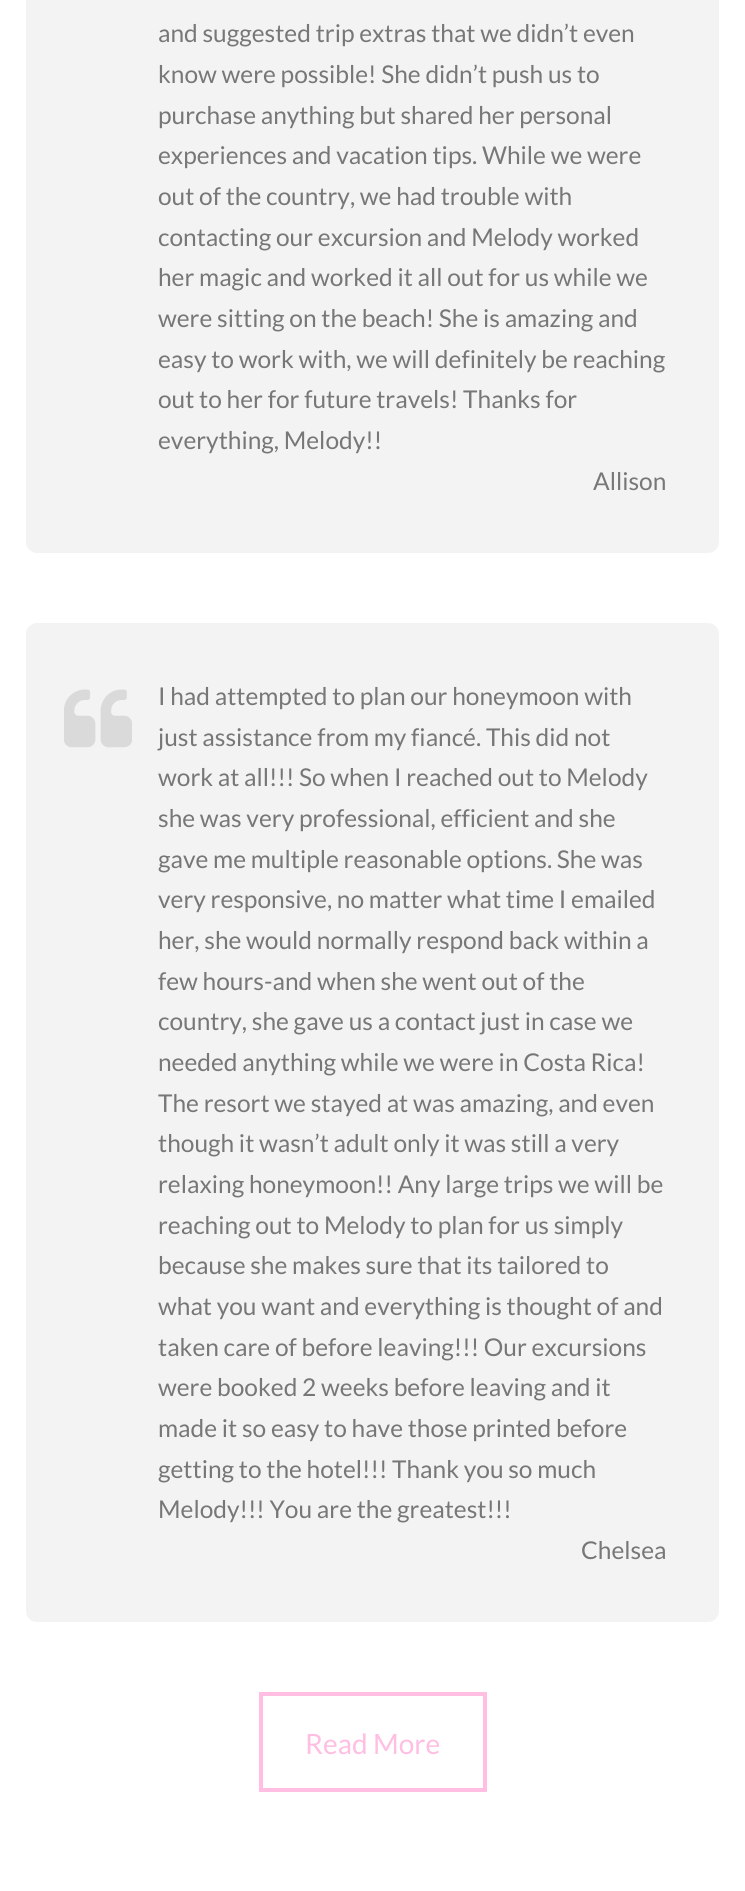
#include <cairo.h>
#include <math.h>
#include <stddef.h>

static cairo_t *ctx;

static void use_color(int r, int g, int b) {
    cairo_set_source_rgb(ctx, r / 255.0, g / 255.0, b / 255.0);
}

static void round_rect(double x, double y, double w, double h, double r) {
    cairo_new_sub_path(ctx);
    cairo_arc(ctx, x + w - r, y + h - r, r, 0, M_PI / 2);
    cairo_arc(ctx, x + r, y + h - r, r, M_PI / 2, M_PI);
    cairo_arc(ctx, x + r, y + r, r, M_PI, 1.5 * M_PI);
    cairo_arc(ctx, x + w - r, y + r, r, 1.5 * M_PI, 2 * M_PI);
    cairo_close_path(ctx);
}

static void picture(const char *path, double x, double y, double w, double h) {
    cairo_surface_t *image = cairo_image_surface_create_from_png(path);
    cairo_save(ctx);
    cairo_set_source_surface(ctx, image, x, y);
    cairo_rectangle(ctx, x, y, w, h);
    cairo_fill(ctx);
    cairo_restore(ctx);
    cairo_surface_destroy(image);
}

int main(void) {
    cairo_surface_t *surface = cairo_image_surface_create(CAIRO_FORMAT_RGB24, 745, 1891);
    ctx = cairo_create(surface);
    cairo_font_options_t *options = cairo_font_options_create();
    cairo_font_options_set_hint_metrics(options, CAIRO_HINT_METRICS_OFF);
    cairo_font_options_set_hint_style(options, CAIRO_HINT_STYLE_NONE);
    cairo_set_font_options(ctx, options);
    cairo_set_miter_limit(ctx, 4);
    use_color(255, 255, 255);
    cairo_paint(ctx);
    use_color(243, 243, 243);
    round_rect(26, -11, 693, 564, 11);
    cairo_fill(ctx);
    cairo_select_font_face(ctx, "Lato", CAIRO_FONT_SLANT_NORMAL, CAIRO_FONT_WEIGHT_NORMAL);
    cairo_set_font_size(ctx, 24.5);
    use_color(119, 119, 119);
    cairo_move_to(ctx, 158, 42);
    cairo_show_text(ctx, "and suggested trip extras that we didn’t even");
    cairo_move_to(ctx, 158, 83);
    cairo_show_text(ctx, "know were possible! She didn’t push us to");
    cairo_move_to(ctx, 158, 124);
    cairo_show_text(ctx, "purchase anything but shared her personal");
    cairo_move_to(ctx, 158, 164);
    cairo_show_text(ctx, "experiences and vacation tips. While we were");
    cairo_move_to(ctx, 158, 205);
    cairo_show_text(ctx, "out of the country, we had trouble with");
    cairo_move_to(ctx, 158, 246);
    cairo_show_text(ctx, "contacting our excursion and Melody worked");
    cairo_move_to(ctx, 158, 286);
    cairo_show_text(ctx, "her magic and worked it all out for us while we");
    cairo_move_to(ctx, 158, 327);
    cairo_show_text(ctx, "were sitting on the beach! She is amazing and");
    cairo_move_to(ctx, 158, 368);
    cairo_show_text(ctx, "easy to work with, we will definitely be reaching");
    cairo_move_to(ctx, 158, 408);
    cairo_show_text(ctx, "out to her for future travels! Thanks for");
    cairo_move_to(ctx, 158, 449);
    cairo_show_text(ctx, "everything, Melody!!");
    cairo_move_to(ctx, 593, 490);
    cairo_show_text(ctx, "Allison");
    use_color(243, 243, 243);
    round_rect(26, 623, 693, 999, 11);
    cairo_fill(ctx);
    picture("img1.png", 64, 689, 68, 59);
    use_color(119, 119, 119);
    cairo_move_to(ctx, 158, 705);
    cairo_show_text(ctx, "I had attempted to plan our honeymoon with");
    cairo_move_to(ctx, 158, 746);
    cairo_show_text(ctx, "just assistance from my fiancé. This did not");
    cairo_move_to(ctx, 158, 786);
    cairo_show_text(ctx, "work at all!!! So when I reached out to Melody");
    cairo_move_to(ctx, 158, 827);
    cairo_show_text(ctx, "she was very professional, efficient and she");
    cairo_move_to(ctx, 158, 868);
    cairo_show_text(ctx, "gave me multiple reasonable options. She was");
    cairo_move_to(ctx, 158, 908);
    cairo_show_text(ctx, "very responsive, no matter what time I emailed");
    cairo_move_to(ctx, 158, 949);
    cairo_show_text(ctx, "her, she would normally respond back within a");
    cairo_move_to(ctx, 158, 990);
    cairo_show_text(ctx, "few hours-and when she went out of the");
    cairo_move_to(ctx, 158, 1030);
    cairo_show_text(ctx, "country, she gave us a contact just in case we");
    cairo_move_to(ctx, 158, 1071);
    cairo_show_text(ctx, "needed anything while we were in Costa Rica!");
    cairo_move_to(ctx, 158, 1112);
    cairo_show_text(ctx, "The resort we stayed at was amazing, and even");
    cairo_move_to(ctx, 158, 1152);
    cairo_show_text(ctx, "though it wasn’t adult only it was still a very");
    cairo_move_to(ctx, 158, 1193);
    cairo_show_text(ctx, "relaxing honeymoon!! Any large trips we will be");
    cairo_move_to(ctx, 158, 1234);
    cairo_show_text(ctx, "reaching out to Melody to plan for us simply");
    cairo_move_to(ctx, 158, 1274);
    cairo_show_text(ctx, "because she makes sure that its tailored to");
    cairo_move_to(ctx, 158, 1315);
    cairo_show_text(ctx, "what you want and everything is thought of and");
    cairo_move_to(ctx, 158, 1356);
    cairo_show_text(ctx, "taken care of before leaving!!! Our excursions");
    cairo_move_to(ctx, 158, 1396);
    cairo_show_text(ctx, "were booked 2 weeks before leaving and it");
    cairo_move_to(ctx, 158, 1437);
    cairo_show_text(ctx, "made it so easy to have those printed before");
    cairo_move_to(ctx, 158, 1478);
    cairo_show_text(ctx, "getting to the hotel!!! Thank you so much");
    cairo_move_to(ctx, 158, 1518);
    cairo_show_text(ctx, "Melody!!! You are the greatest!!!");
    cairo_move_to(ctx, 581, 1559);
    cairo_show_text(ctx, "Chelsea");
    cairo_rectangle(ctx, 261, 1694, 224, 96);
    use_color(255, 190, 226);
    cairo_set_line_width(ctx, 4);
    cairo_stroke(ctx);
    cairo_set_font_size(ctx, 28);
    cairo_move_to(ctx, 305, 1754);
    cairo_show_text(ctx, "Read More");
    cairo_surface_write_to_png(surface, "result.png");
    cairo_font_options_destroy(options);
    cairo_destroy(ctx);
    cairo_surface_destroy(surface);
    return 0;
}
